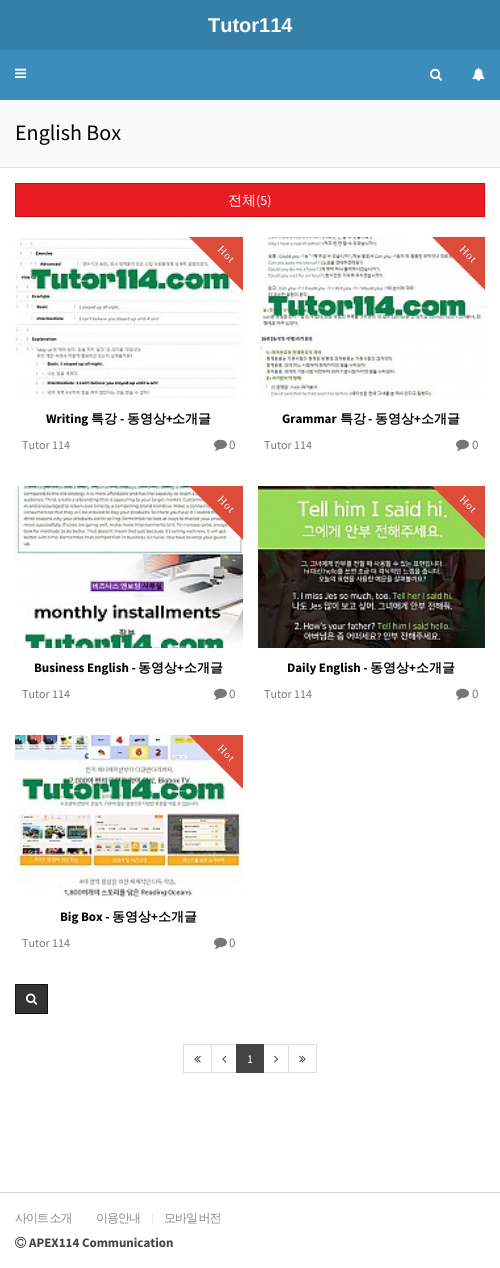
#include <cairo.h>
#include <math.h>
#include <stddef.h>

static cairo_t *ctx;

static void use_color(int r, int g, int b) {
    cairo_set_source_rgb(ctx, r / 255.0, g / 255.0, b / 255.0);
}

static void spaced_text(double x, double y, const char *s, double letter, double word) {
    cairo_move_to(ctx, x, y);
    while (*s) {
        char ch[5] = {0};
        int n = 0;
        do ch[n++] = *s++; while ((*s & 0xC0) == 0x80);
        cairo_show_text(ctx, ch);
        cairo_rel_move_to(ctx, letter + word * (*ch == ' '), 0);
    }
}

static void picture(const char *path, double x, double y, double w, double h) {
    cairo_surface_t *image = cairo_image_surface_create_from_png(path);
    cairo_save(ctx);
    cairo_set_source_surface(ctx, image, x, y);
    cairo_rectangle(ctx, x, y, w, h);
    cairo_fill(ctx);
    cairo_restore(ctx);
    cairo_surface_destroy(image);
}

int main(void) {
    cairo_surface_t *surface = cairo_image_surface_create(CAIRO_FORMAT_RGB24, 500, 1268);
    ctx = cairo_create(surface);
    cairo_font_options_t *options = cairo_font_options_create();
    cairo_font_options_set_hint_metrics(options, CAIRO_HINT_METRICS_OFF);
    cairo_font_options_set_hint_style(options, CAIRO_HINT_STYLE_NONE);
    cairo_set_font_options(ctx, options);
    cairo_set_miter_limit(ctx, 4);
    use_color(255, 255, 255);
    cairo_paint(ctx);
    use_color(54, 127, 169);
    cairo_rectangle(ctx, 0, 0, 500, 50);
    cairo_fill(ctx);
    cairo_select_font_face(ctx, "Liberation Sans", CAIRO_FONT_SLANT_NORMAL, CAIRO_FONT_WEIGHT_BOLD);
    cairo_set_font_size(ctx, 20);
    use_color(255, 255, 255);
    cairo_move_to(ctx, 208, 32);
    cairo_show_text(ctx, "Tutor114");
    use_color(60, 141, 188);
    cairo_rectangle(ctx, 0, 50, 500, 50);
    cairo_fill(ctx);
    picture("img1.png", 15, 68, 12, 10);
    picture("img2.png", 430, 68, 12, 13);
    picture("img3.png", 472, 67, 13, 14);
    use_color(250, 250, 250);
    cairo_rectangle(ctx, 0, 100, 500, 67);
    cairo_fill(ctx);
    use_color(221, 221, 221);
    cairo_rectangle(ctx, 0, 167, 500, 1);
    cairo_fill(ctx);
    cairo_select_font_face(ctx, "Source Sans Pro", CAIRO_FONT_SLANT_NORMAL, CAIRO_FONT_WEIGHT_NORMAL);
    cairo_set_font_size(ctx, 22);
    use_color(0, 0, 0);
    cairo_move_to(ctx, 15, 140);
    cairo_show_text(ctx, "English Box");
    use_color(233, 27, 35);
    cairo_rectangle(ctx, 15.5, 183.5, 469, 33);
    cairo_fill_preserve(ctx);
    use_color(213, 7, 15);
    cairo_set_line_width(ctx, 1);
    cairo_stroke(ctx);
    cairo_select_font_face(ctx, "WenQuanYi Zen Hei Medium", CAIRO_FONT_SLANT_NORMAL, CAIRO_FONT_WEIGHT_NORMAL);
    cairo_set_font_size(ctx, 14);
    use_color(255, 255, 255);
    cairo_move_to(ctx, 228, 205);
    cairo_show_text(ctx, "전체");
    cairo_select_font_face(ctx, "Source Sans Pro", CAIRO_FONT_SLANT_NORMAL, CAIRO_FONT_WEIGHT_NORMAL);
    cairo_move_to(ctx, 256, 205);
    cairo_show_text(ctx, "(5)");
    picture("img4.png", 15, 238, 228, 161);
    cairo_save(ctx);
    cairo_rectangle(ctx, 15, 237, 228, 162);
    cairo_clip(ctx);
    use_color(221, 75, 57);
    cairo_new_path(ctx);
    cairo_move_to(ctx, 199, 183);
    cairo_line_to(ctx, 298, 282);
    cairo_line_to(ctx, 266, 314);
    cairo_line_to(ctx, 167, 215);
    cairo_close_path(ctx);
    cairo_fill(ctx);
    cairo_restore(ctx);
    cairo_select_font_face(ctx, "Liberation Serif", CAIRO_FONT_SLANT_NORMAL, CAIRO_FONT_WEIGHT_NORMAL);
    cairo_set_font_size(ctx, 11);
    cairo_save(ctx);
    cairo_translate(ctx, 217, 250);
    cairo_rotate(ctx, 45 * M_PI / 180);
    spaced_text(0, 0, "Hot", 1, 0);
    cairo_restore(ctx);
    cairo_select_font_face(ctx, "Source Sans Pro", CAIRO_FONT_SLANT_NORMAL, CAIRO_FONT_WEIGHT_BOLD);
    cairo_set_font_size(ctx, 13);
    use_color(0, 0, 0);
    cairo_move_to(ctx, 46, 423);
    cairo_show_text(ctx, "Writing");
    cairo_select_font_face(ctx, "WenQuanYi Zen Hei", CAIRO_FONT_SLANT_NORMAL, CAIRO_FONT_WEIGHT_BOLD);
    cairo_move_to(ctx, 91, 423);
    cairo_show_text(ctx, "특강");
    cairo_select_font_face(ctx, "Source Sans Pro", CAIRO_FONT_SLANT_NORMAL, CAIRO_FONT_WEIGHT_BOLD);
    cairo_move_to(ctx, 120, 423);
    cairo_show_text(ctx, "-");
    cairo_select_font_face(ctx, "WenQuanYi Zen Hei", CAIRO_FONT_SLANT_NORMAL, CAIRO_FONT_WEIGHT_BOLD);
    cairo_move_to(ctx, 127, 423);
    cairo_show_text(ctx, "동영상");
    cairo_select_font_face(ctx, "Source Sans Pro", CAIRO_FONT_SLANT_NORMAL, CAIRO_FONT_WEIGHT_BOLD);
    cairo_move_to(ctx, 166, 423);
    cairo_show_text(ctx, "+");
    cairo_select_font_face(ctx, "WenQuanYi Zen Hei", CAIRO_FONT_SLANT_NORMAL, CAIRO_FONT_WEIGHT_BOLD);
    cairo_move_to(ctx, 172, 423);
    cairo_show_text(ctx, "소개글");
    cairo_select_font_face(ctx, "Source Sans Pro", CAIRO_FONT_SLANT_NORMAL, CAIRO_FONT_WEIGHT_NORMAL);
    cairo_set_font_size(ctx, 12);
    use_color(119, 119, 119);
    cairo_move_to(ctx, 22, 449);
    cairo_show_text(ctx, "Tutor 114");
    picture("img5.png", 214, 439, 13, 12);
    cairo_set_font_size(ctx, 13);
    cairo_move_to(ctx, 229, 449);
    cairo_show_text(ctx, "0");
    picture("img6.png", 258, 237, 227, 162);
    cairo_save(ctx);
    cairo_rectangle(ctx, 258, 237, 227, 162);
    cairo_clip(ctx);
    use_color(221, 75, 57);
    cairo_new_path(ctx);
    cairo_move_to(ctx, 441, 183);
    cairo_line_to(ctx, 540, 282);
    cairo_line_to(ctx, 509, 314);
    cairo_line_to(ctx, 410, 215);
    cairo_close_path(ctx);
    cairo_fill(ctx);
    cairo_restore(ctx);
    cairo_select_font_face(ctx, "Liberation Serif", CAIRO_FONT_SLANT_NORMAL, CAIRO_FONT_WEIGHT_NORMAL);
    cairo_set_font_size(ctx, 11);
    use_color(255, 255, 255);
    cairo_save(ctx);
    cairo_translate(ctx, 459, 250);
    cairo_rotate(ctx, 45 * M_PI / 180);
    spaced_text(0, 0, "Hot", 1, 0);
    cairo_restore(ctx);
    cairo_select_font_face(ctx, "Source Sans Pro", CAIRO_FONT_SLANT_NORMAL, CAIRO_FONT_WEIGHT_BOLD);
    cairo_set_font_size(ctx, 13);
    use_color(0, 0, 0);
    cairo_move_to(ctx, 282, 423);
    cairo_show_text(ctx, "Grammar");
    cairo_select_font_face(ctx, "WenQuanYi Zen Hei", CAIRO_FONT_SLANT_NORMAL, CAIRO_FONT_WEIGHT_BOLD);
    cairo_move_to(ctx, 340, 423);
    cairo_show_text(ctx, "특강");
    cairo_select_font_face(ctx, "Source Sans Pro", CAIRO_FONT_SLANT_NORMAL, CAIRO_FONT_WEIGHT_BOLD);
    cairo_move_to(ctx, 368, 423);
    cairo_show_text(ctx, "-");
    cairo_select_font_face(ctx, "WenQuanYi Zen Hei", CAIRO_FONT_SLANT_NORMAL, CAIRO_FONT_WEIGHT_BOLD);
    cairo_move_to(ctx, 375, 423);
    cairo_show_text(ctx, "동영상");
    cairo_select_font_face(ctx, "Source Sans Pro", CAIRO_FONT_SLANT_NORMAL, CAIRO_FONT_WEIGHT_BOLD);
    cairo_move_to(ctx, 414, 423);
    cairo_show_text(ctx, "+");
    cairo_select_font_face(ctx, "WenQuanYi Zen Hei", CAIRO_FONT_SLANT_NORMAL, CAIRO_FONT_WEIGHT_BOLD);
    cairo_move_to(ctx, 421, 423);
    cairo_show_text(ctx, "소개글");
    cairo_select_font_face(ctx, "Source Sans Pro", CAIRO_FONT_SLANT_NORMAL, CAIRO_FONT_WEIGHT_NORMAL);
    cairo_set_font_size(ctx, 12);
    use_color(119, 119, 119);
    cairo_move_to(ctx, 264, 449);
    cairo_show_text(ctx, "Tutor 114");
    picture("img5.png", 456, 439, 13, 12);
    cairo_set_font_size(ctx, 13);
    cairo_move_to(ctx, 472, 449);
    cairo_show_text(ctx, "0");
    picture("img7.png", 15, 486, 228, 162);
    cairo_save(ctx);
    cairo_rectangle(ctx, 15, 486, 228, 162);
    cairo_clip(ctx);
    use_color(221, 75, 57);
    cairo_new_path(ctx);
    cairo_move_to(ctx, 199, 432);
    cairo_line_to(ctx, 298, 531);
    cairo_line_to(ctx, 266, 563);
    cairo_line_to(ctx, 167, 464);
    cairo_close_path(ctx);
    cairo_fill(ctx);
    cairo_restore(ctx);
    cairo_select_font_face(ctx, "Liberation Serif", CAIRO_FONT_SLANT_NORMAL, CAIRO_FONT_WEIGHT_NORMAL);
    cairo_set_font_size(ctx, 11);
    use_color(255, 255, 255);
    cairo_save(ctx);
    cairo_translate(ctx, 217, 500);
    cairo_rotate(ctx, 45 * M_PI / 180);
    spaced_text(0, 0, "Hot", 1, 0);
    cairo_restore(ctx);
    cairo_select_font_face(ctx, "Source Sans Pro", CAIRO_FONT_SLANT_NORMAL, CAIRO_FONT_WEIGHT_BOLD);
    cairo_set_font_size(ctx, 13);
    use_color(0, 0, 0);
    cairo_move_to(ctx, 34, 672);
    cairo_show_text(ctx, "Business English -");
    cairo_select_font_face(ctx, "WenQuanYi Zen Hei", CAIRO_FONT_SLANT_NORMAL, CAIRO_FONT_WEIGHT_BOLD);
    cairo_move_to(ctx, 138, 672);
    cairo_show_text(ctx, "동영상");
    cairo_select_font_face(ctx, "Source Sans Pro", CAIRO_FONT_SLANT_NORMAL, CAIRO_FONT_WEIGHT_BOLD);
    cairo_move_to(ctx, 177, 672);
    cairo_show_text(ctx, "+");
    cairo_select_font_face(ctx, "WenQuanYi Zen Hei", CAIRO_FONT_SLANT_NORMAL, CAIRO_FONT_WEIGHT_BOLD);
    cairo_move_to(ctx, 184, 672);
    cairo_show_text(ctx, "소개글");
    cairo_select_font_face(ctx, "Source Sans Pro", CAIRO_FONT_SLANT_NORMAL, CAIRO_FONT_WEIGHT_NORMAL);
    cairo_set_font_size(ctx, 12);
    use_color(119, 119, 119);
    cairo_move_to(ctx, 22, 698);
    cairo_show_text(ctx, "Tutor 114");
    picture("img5.png", 214, 688, 13, 12);
    cairo_set_font_size(ctx, 13);
    cairo_move_to(ctx, 229, 698);
    cairo_show_text(ctx, "0");
    picture("img8.png", 258, 486, 227, 162);
    cairo_save(ctx);
    cairo_rectangle(ctx, 258, 486, 227, 162);
    cairo_clip(ctx);
    use_color(221, 75, 57);
    cairo_new_path(ctx);
    cairo_move_to(ctx, 441, 432);
    cairo_line_to(ctx, 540, 531);
    cairo_line_to(ctx, 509, 563);
    cairo_line_to(ctx, 410, 464);
    cairo_close_path(ctx);
    cairo_fill(ctx);
    cairo_restore(ctx);
    cairo_select_font_face(ctx, "Liberation Serif", CAIRO_FONT_SLANT_NORMAL, CAIRO_FONT_WEIGHT_NORMAL);
    cairo_set_font_size(ctx, 11);
    use_color(255, 255, 255);
    cairo_save(ctx);
    cairo_translate(ctx, 459, 500);
    cairo_rotate(ctx, 45 * M_PI / 180);
    spaced_text(0, 0, "Hot", 1, 0);
    cairo_restore(ctx);
    cairo_select_font_face(ctx, "Source Sans Pro", CAIRO_FONT_SLANT_NORMAL, CAIRO_FONT_WEIGHT_BOLD);
    cairo_set_font_size(ctx, 13);
    use_color(0, 0, 0);
    cairo_move_to(ctx, 287, 672);
    cairo_show_text(ctx, "Daily English -");
    cairo_select_font_face(ctx, "WenQuanYi Zen Hei", CAIRO_FONT_SLANT_NORMAL, CAIRO_FONT_WEIGHT_BOLD);
    cairo_move_to(ctx, 370, 672);
    cairo_show_text(ctx, "동영상");
    cairo_select_font_face(ctx, "Source Sans Pro", CAIRO_FONT_SLANT_NORMAL, CAIRO_FONT_WEIGHT_BOLD);
    cairo_move_to(ctx, 409, 672);
    cairo_show_text(ctx, "+");
    cairo_select_font_face(ctx, "WenQuanYi Zen Hei", CAIRO_FONT_SLANT_NORMAL, CAIRO_FONT_WEIGHT_BOLD);
    cairo_move_to(ctx, 416, 672);
    cairo_show_text(ctx, "소개글");
    cairo_select_font_face(ctx, "Source Sans Pro", CAIRO_FONT_SLANT_NORMAL, CAIRO_FONT_WEIGHT_NORMAL);
    cairo_set_font_size(ctx, 12);
    use_color(119, 119, 119);
    cairo_move_to(ctx, 264, 698);
    cairo_show_text(ctx, "Tutor 114");
    picture("img5.png", 456, 688, 13, 12);
    cairo_set_font_size(ctx, 13);
    cairo_move_to(ctx, 472, 698);
    cairo_show_text(ctx, "0");
    picture("img9.png", 15, 735, 228, 162);
    cairo_save(ctx);
    cairo_rectangle(ctx, 15, 735, 228, 162);
    cairo_clip(ctx);
    use_color(221, 75, 57);
    cairo_new_path(ctx);
    cairo_move_to(ctx, 199, 681);
    cairo_line_to(ctx, 298, 780);
    cairo_line_to(ctx, 266, 812);
    cairo_line_to(ctx, 167, 713);
    cairo_close_path(ctx);
    cairo_fill(ctx);
    cairo_restore(ctx);
    cairo_select_font_face(ctx, "Liberation Serif", CAIRO_FONT_SLANT_NORMAL, CAIRO_FONT_WEIGHT_NORMAL);
    cairo_set_font_size(ctx, 11);
    use_color(255, 255, 255);
    cairo_save(ctx);
    cairo_translate(ctx, 217, 749);
    cairo_rotate(ctx, 45 * M_PI / 180);
    spaced_text(0, 0, "Hot", 1, 0);
    cairo_restore(ctx);
    cairo_select_font_face(ctx, "Source Sans Pro", CAIRO_FONT_SLANT_NORMAL, CAIRO_FONT_WEIGHT_BOLD);
    cairo_set_font_size(ctx, 13);
    use_color(0, 0, 0);
    cairo_move_to(ctx, 60, 921);
    cairo_show_text(ctx, "Big Box -");
    cairo_select_font_face(ctx, "WenQuanYi Zen Hei", CAIRO_FONT_SLANT_NORMAL, CAIRO_FONT_WEIGHT_BOLD);
    cairo_move_to(ctx, 112, 921);
    cairo_show_text(ctx, "동영상");
    cairo_select_font_face(ctx, "Source Sans Pro", CAIRO_FONT_SLANT_NORMAL, CAIRO_FONT_WEIGHT_BOLD);
    cairo_move_to(ctx, 151, 921);
    cairo_show_text(ctx, "+");
    cairo_select_font_face(ctx, "WenQuanYi Zen Hei", CAIRO_FONT_SLANT_NORMAL, CAIRO_FONT_WEIGHT_BOLD);
    cairo_move_to(ctx, 158, 921);
    cairo_show_text(ctx, "소개글");
    cairo_select_font_face(ctx, "Source Sans Pro", CAIRO_FONT_SLANT_NORMAL, CAIRO_FONT_WEIGHT_NORMAL);
    cairo_set_font_size(ctx, 12);
    use_color(119, 119, 119);
    cairo_move_to(ctx, 22, 947);
    cairo_show_text(ctx, "Tutor 114");
    picture("img5.png", 214, 937, 13, 12);
    cairo_set_font_size(ctx, 13);
    cairo_move_to(ctx, 229, 947);
    cairo_show_text(ctx, "0");
    use_color(51, 51, 51);
    cairo_rectangle(ctx, 15.5, 984.5, 32, 29);
    cairo_fill_preserve(ctx);
    use_color(17, 17, 17);
    cairo_stroke(ctx);
    picture("img10.png", 26, 993, 12, 12);
    cairo_rectangle(ctx, 183.5, 1044.5, 28, 28);
    use_color(221, 221, 221);
    cairo_stroke(ctx);
    picture("img11.png", 194, 1055, 7, 8);
    cairo_rectangle(ctx, 211.5, 1044.5, 25, 28);
    cairo_stroke(ctx);
    picture("img12.png", 222, 1055, 5, 8);
    cairo_rectangle(ctx, 263.5, 1044.5, 25, 28);
    cairo_stroke(ctx);
    use_color(68, 68, 68);
    cairo_rectangle(ctx, 236, 1044, 28, 29);
    cairo_fill(ctx);
    cairo_set_font_size(ctx, 12);
    use_color(255, 255, 255);
    cairo_move_to(ctx, 247, 1063);
    cairo_show_text(ctx, "1");
    picture("img13.png", 274, 1055, 4, 8);
    cairo_rectangle(ctx, 288.5, 1044.5, 28, 28);
    use_color(221, 221, 221);
    cairo_stroke(ctx);
    picture("img14.png", 299, 1055, 7, 8);
    use_color(210, 214, 222);
    cairo_rectangle(ctx, 0, 1192, 500, 1);
    cairo_fill(ctx);
    cairo_select_font_face(ctx, "WenQuanYi Zen Hei Medium", CAIRO_FONT_SLANT_NORMAL, CAIRO_FONT_WEIGHT_NORMAL);
    use_color(136, 136, 136);
    spaced_text(15, 1222, "사이트 소개", -1, -1);
    spaced_text(96, 1222, "이용안내", -1, 0);
    cairo_select_font_face(ctx, "Source Sans Pro", CAIRO_FONT_SLANT_NORMAL, CAIRO_FONT_WEIGHT_NORMAL);
    cairo_set_font_size(ctx, 11);
    use_color(221, 221, 221);
    spaced_text(151, 1222, "|", -1, 0);
    cairo_select_font_face(ctx, "WenQuanYi Zen Hei Medium", CAIRO_FONT_SLANT_NORMAL, CAIRO_FONT_WEIGHT_NORMAL);
    cairo_set_font_size(ctx, 12);
    use_color(136, 136, 136);
    spaced_text(164, 1222, "모바일 버전", -1, -1);
    picture("img15.png", 15, 1236, 12, 12);
    cairo_select_font_face(ctx, "Source Sans Pro", CAIRO_FONT_SLANT_NORMAL, CAIRO_FONT_WEIGHT_BOLD);
    cairo_set_font_size(ctx, 13);
    use_color(68, 68, 68);
    cairo_move_to(ctx, 29, 1247);
    cairo_show_text(ctx, "APEX114 Communication");
    cairo_surface_write_to_png(surface, "result.png");
    cairo_font_options_destroy(options);
    cairo_destroy(ctx);
    cairo_surface_destroy(surface);
    return 0;
}
